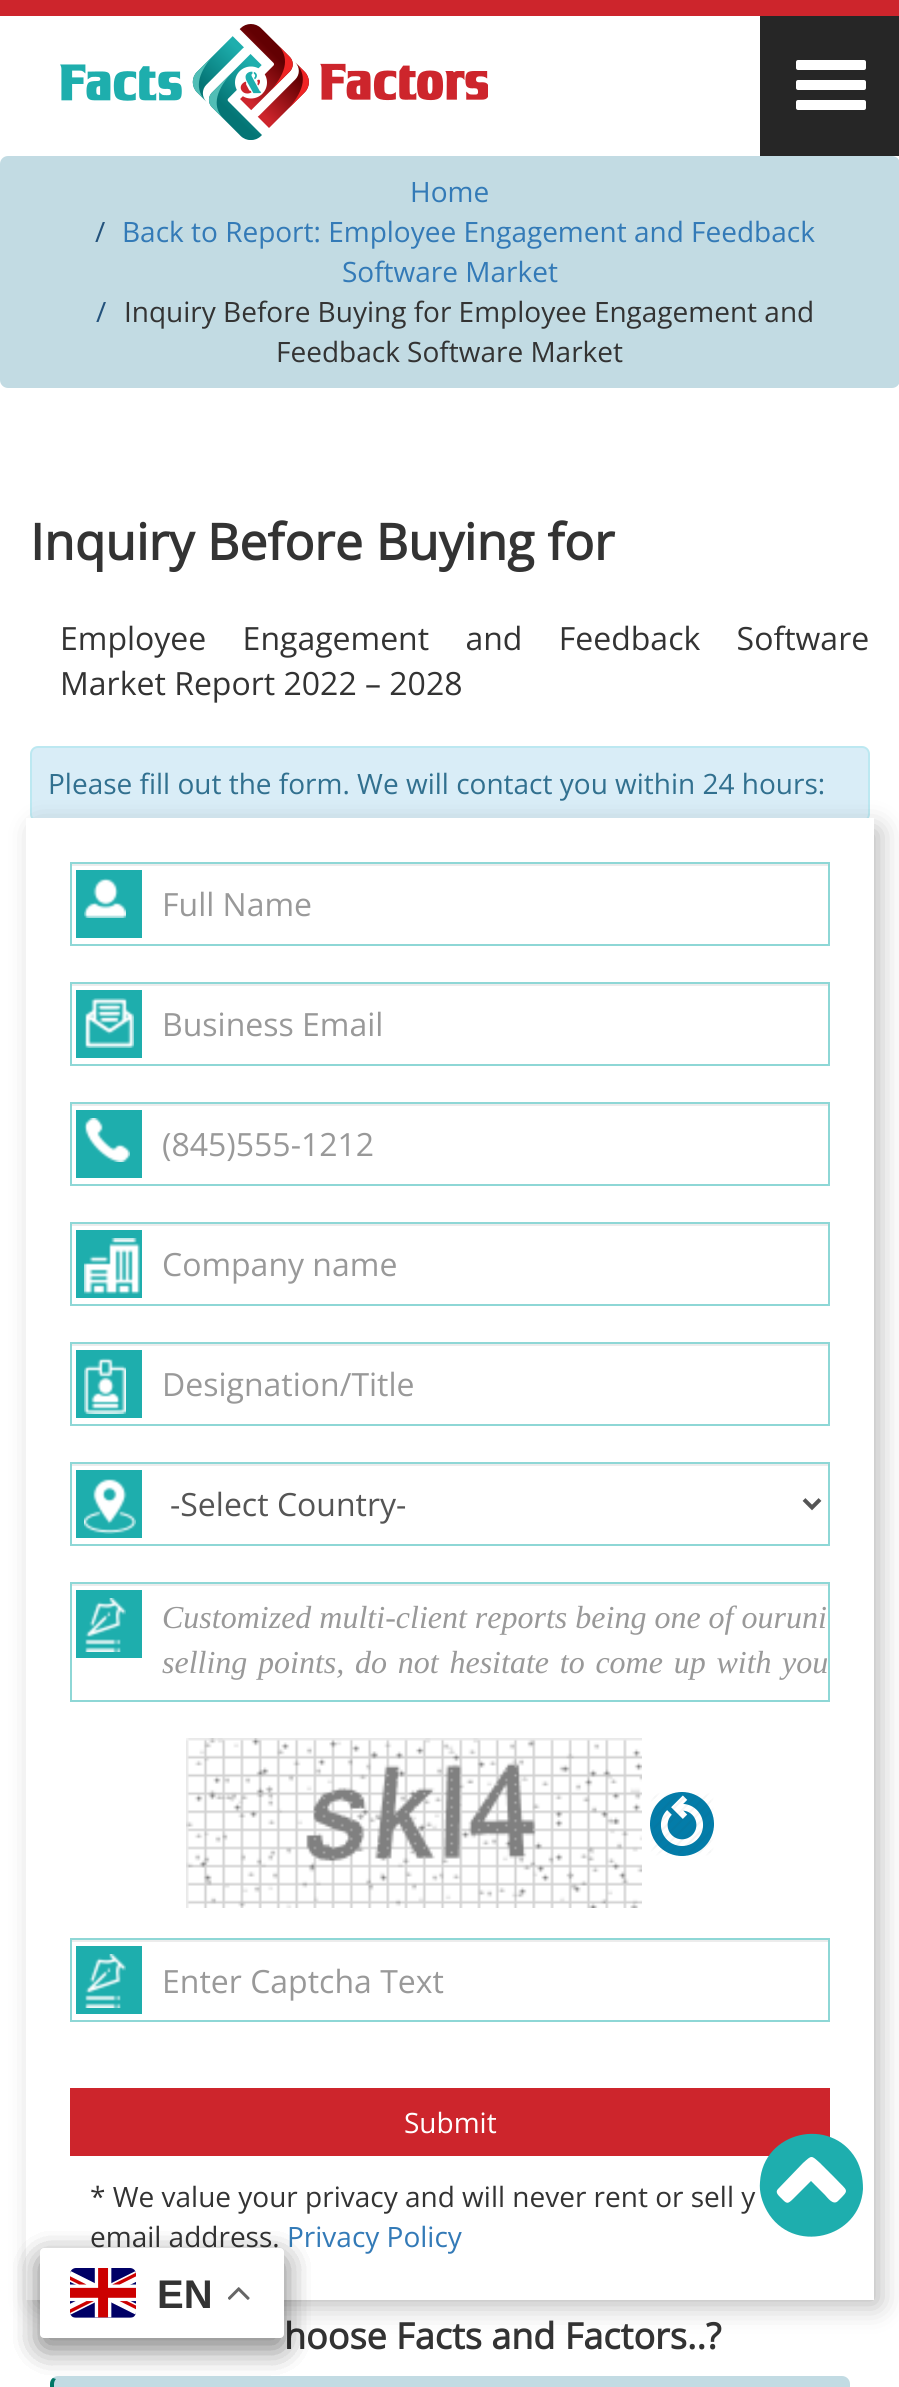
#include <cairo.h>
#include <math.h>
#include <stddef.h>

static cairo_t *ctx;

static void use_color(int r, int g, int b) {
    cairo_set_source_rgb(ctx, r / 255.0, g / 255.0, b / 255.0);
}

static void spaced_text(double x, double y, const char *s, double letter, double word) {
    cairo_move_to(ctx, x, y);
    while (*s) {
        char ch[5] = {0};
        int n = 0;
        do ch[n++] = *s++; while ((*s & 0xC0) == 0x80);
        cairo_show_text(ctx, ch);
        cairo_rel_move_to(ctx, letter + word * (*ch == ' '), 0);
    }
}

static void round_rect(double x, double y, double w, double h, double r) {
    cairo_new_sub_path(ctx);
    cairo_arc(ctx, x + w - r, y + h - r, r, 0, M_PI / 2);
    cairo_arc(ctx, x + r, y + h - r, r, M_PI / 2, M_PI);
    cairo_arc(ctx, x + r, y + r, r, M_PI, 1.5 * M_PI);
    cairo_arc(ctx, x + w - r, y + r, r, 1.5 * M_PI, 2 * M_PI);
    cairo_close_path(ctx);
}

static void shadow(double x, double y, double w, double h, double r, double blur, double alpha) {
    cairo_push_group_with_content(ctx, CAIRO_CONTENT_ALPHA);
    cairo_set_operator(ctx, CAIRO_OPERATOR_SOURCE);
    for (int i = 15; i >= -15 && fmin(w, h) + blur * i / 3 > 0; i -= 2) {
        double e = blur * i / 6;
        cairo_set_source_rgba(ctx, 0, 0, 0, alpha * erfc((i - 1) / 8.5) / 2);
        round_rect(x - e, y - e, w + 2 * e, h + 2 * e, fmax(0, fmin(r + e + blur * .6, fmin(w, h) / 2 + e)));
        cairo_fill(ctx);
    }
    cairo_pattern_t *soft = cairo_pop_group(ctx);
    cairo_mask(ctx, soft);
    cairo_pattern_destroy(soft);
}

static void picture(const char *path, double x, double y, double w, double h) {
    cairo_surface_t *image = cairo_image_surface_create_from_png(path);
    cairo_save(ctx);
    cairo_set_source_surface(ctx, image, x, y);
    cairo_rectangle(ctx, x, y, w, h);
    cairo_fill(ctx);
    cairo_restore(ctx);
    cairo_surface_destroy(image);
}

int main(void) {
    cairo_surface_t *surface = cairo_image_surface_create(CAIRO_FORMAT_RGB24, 899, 2387);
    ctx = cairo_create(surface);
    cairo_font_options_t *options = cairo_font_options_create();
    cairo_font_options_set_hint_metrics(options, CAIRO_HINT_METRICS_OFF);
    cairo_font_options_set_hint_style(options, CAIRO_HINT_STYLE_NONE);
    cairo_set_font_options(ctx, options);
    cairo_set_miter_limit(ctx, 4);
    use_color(255, 255, 255);
    cairo_paint(ctx);
    use_color(205, 37, 44);
    cairo_rectangle(ctx, 0, 0, 899, 16);
    cairo_fill(ctx);
    picture("img1.png", 60, 24, 428, 116);
    use_color(38, 38, 38);
    cairo_rectangle(ctx, 760, 16, 139, 140);
    cairo_fill(ctx);
    use_color(255, 255, 255);
    round_rect(796, 80, 70, 10, 2);
    cairo_fill(ctx);
    round_rect(796, 60, 70, 10, 2);
    cairo_fill(ctx);
    round_rect(796, 100, 70, 10, 2);
    cairo_fill(ctx);
    use_color(194, 219, 227);
    round_rect(0, 156, 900, 232, 8);
    cairo_fill(ctx);
    cairo_select_font_face(ctx, "Open Sans", CAIRO_FONT_SLANT_NORMAL, CAIRO_FONT_WEIGHT_NORMAL);
    cairo_set_font_size(ctx, 28);
    use_color(51, 122, 183);
    cairo_move_to(ctx, 410, 202);
    cairo_show_text(ctx, "Home");
    use_color(35, 82, 124);
    cairo_move_to(ctx, 95, 242);
    cairo_show_text(ctx, "/");
    use_color(51, 122, 183);
    cairo_move_to(ctx, 122, 242);
    cairo_show_text(ctx, "Back to Report: Employee Engagement and Feedback");
    cairo_move_to(ctx, 342, 282);
    cairo_show_text(ctx, "Software Market");
    use_color(35, 82, 124);
    cairo_move_to(ctx, 96, 322);
    cairo_show_text(ctx, "/");
    use_color(51, 51, 51);
    cairo_move_to(ctx, 124, 322);
    cairo_show_text(ctx, "Inquiry Before Buying for Employee Engagement and");
    cairo_move_to(ctx, 276, 362);
    cairo_show_text(ctx, "Feedback Software Market");
    cairo_select_font_face(ctx, "Open Sans", CAIRO_FONT_SLANT_NORMAL, CAIRO_FONT_WEIGHT_BOLD);
    cairo_set_font_size(ctx, 50);
    cairo_move_to(ctx, 30, 560);
    cairo_show_text(ctx, "Inquiry Before Buying for");
    cairo_select_font_face(ctx, "Open Sans", CAIRO_FONT_SLANT_NORMAL, CAIRO_FONT_WEIGHT_NORMAL);
    cairo_set_font_size(ctx, 32);
    spaced_text(60, 650, "Employee Engagement and Feedback Software", 0, 28);
    cairo_move_to(ctx, 60, 695);
    cairo_show_text(ctx, "Market Report 2022 – 2028");
    use_color(217, 237, 247);
    round_rect(31, 747, 838, 74, 7);
    cairo_fill_preserve(ctx);
    use_color(188, 232, 241);
    cairo_stroke(ctx);
    cairo_save(ctx);
    cairo_set_fill_rule(ctx, CAIRO_FILL_RULE_EVEN_ODD);
    cairo_new_path(ctx);
    cairo_move_to(ctx, 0, 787);
    cairo_line_to(ctx, 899, 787);
    cairo_line_to(ctx, 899, 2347);
    cairo_line_to(ctx, 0, 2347);
    cairo_close_path(ctx);
    cairo_move_to(ctx, 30, 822);
    cairo_line_to(ctx, 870, 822);
    cairo_line_to(ctx, 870, 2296);
    cairo_line_to(ctx, 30, 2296);
    cairo_close_path(ctx);
    cairo_clip(ctx);
    use_color(0, 0, 0);
    shadow(38, 830, 840, 1474, 0, 14, 0.3);
    cairo_restore(ctx);
    cairo_set_font_size(ctx, 28);
    use_color(49, 112, 143);
    cairo_move_to(ctx, 48, 794);
    cairo_show_text(ctx, "Please fill out the form. We will contact you within 24 hours:");
    cairo_rectangle(ctx, 28, 820, 844, 1478);
    use_color(255, 255, 255);
    cairo_set_line_width(ctx, 4);
    cairo_stroke(ctx);
    use_color(236, 236, 236);
    cairo_rectangle(ctx, 72, 864, 756, 2);
    cairo_fill(ctx);
    cairo_rectangle(ctx, 71, 863, 758, 82);
    use_color(142, 215, 214);
    cairo_set_line_width(ctx, 2);
    cairo_stroke(ctx);
    use_color(30, 174, 173);
    cairo_rectangle(ctx, 76, 870, 66, 68);
    cairo_fill(ctx);
    picture("img2.png", 84, 878, 42, 40);
    cairo_set_font_size(ctx, 32);
    use_color(153, 153, 153);
    cairo_move_to(ctx, 162, 916);
    cairo_show_text(ctx, "Full Name");
    use_color(236, 236, 236);
    cairo_rectangle(ctx, 72, 984, 756, 2);
    cairo_fill(ctx);
    cairo_rectangle(ctx, 71, 983, 758, 82);
    use_color(142, 215, 214);
    cairo_stroke(ctx);
    use_color(30, 174, 173);
    cairo_rectangle(ctx, 76, 990, 66, 68);
    cairo_fill(ctx);
    picture("img3.png", 84, 998, 50, 50);
    use_color(153, 153, 153);
    cairo_move_to(ctx, 162, 1036);
    cairo_show_text(ctx, "Business Email");
    use_color(236, 236, 236);
    cairo_rectangle(ctx, 72, 1104, 756, 2);
    cairo_fill(ctx);
    cairo_rectangle(ctx, 71, 1103, 758, 82);
    use_color(142, 215, 214);
    cairo_stroke(ctx);
    use_color(30, 174, 173);
    cairo_rectangle(ctx, 76, 1110, 66, 68);
    cairo_fill(ctx);
    picture("img4.png", 84, 1118, 46, 44);
    use_color(153, 153, 153);
    cairo_move_to(ctx, 162, 1156);
    cairo_show_text(ctx, "(845)555-1212");
    use_color(236, 236, 236);
    cairo_rectangle(ctx, 72, 1224, 756, 2);
    cairo_fill(ctx);
    cairo_rectangle(ctx, 71, 1223, 758, 82);
    use_color(142, 215, 214);
    cairo_stroke(ctx);
    use_color(30, 174, 173);
    cairo_rectangle(ctx, 76, 1230, 66, 68);
    cairo_fill(ctx);
    picture("img5.png", 84, 1238, 56, 56);
    use_color(153, 153, 153);
    cairo_move_to(ctx, 162, 1276);
    cairo_show_text(ctx, "Company name");
    use_color(236, 236, 236);
    cairo_rectangle(ctx, 72, 1344, 756, 2);
    cairo_fill(ctx);
    cairo_rectangle(ctx, 71, 1343, 758, 82);
    use_color(142, 215, 214);
    cairo_stroke(ctx);
    use_color(30, 174, 173);
    cairo_rectangle(ctx, 76, 1350, 66, 68);
    cairo_fill(ctx);
    picture("img6.png", 84, 1358, 42, 56);
    use_color(153, 153, 153);
    cairo_move_to(ctx, 162, 1396);
    cairo_show_text(ctx, "Designation/Title");
    use_color(236, 236, 236);
    cairo_rectangle(ctx, 72, 1464, 756, 2);
    cairo_fill(ctx);
    cairo_rectangle(ctx, 71, 1463, 758, 82);
    use_color(142, 215, 214);
    cairo_stroke(ctx);
    use_color(30, 174, 173);
    cairo_rectangle(ctx, 76, 1470, 66, 68);
    cairo_fill(ctx);
    picture("img7.png", 84, 1479, 52, 55);
    cairo_new_path(ctx);
    cairo_move_to(ctx, 804, 1499.5);
    cairo_line_to(ctx, 812, 1507.5);
    cairo_line_to(ctx, 820, 1499.5);
    use_color(85, 85, 85);
    cairo_set_line_width(ctx, 4);
    cairo_stroke(ctx);
    cairo_move_to(ctx, 170, 1516);
    cairo_show_text(ctx, "-Select Country-");
    use_color(236, 236, 236);
    cairo_rectangle(ctx, 72, 1584, 756, 2);
    cairo_fill(ctx);
    cairo_rectangle(ctx, 71, 1583, 758, 118);
    use_color(142, 215, 214);
    cairo_set_line_width(ctx, 2);
    cairo_stroke(ctx);
    use_color(30, 174, 173);
    cairo_rectangle(ctx, 76, 1590, 66, 68);
    cairo_fill(ctx);
    picture("img8.png", 85, 1598, 41, 54);
    cairo_select_font_face(ctx, "Liberation Serif", CAIRO_FONT_SLANT_ITALIC, CAIRO_FONT_WEIGHT_NORMAL);
    use_color(153, 153, 153);
    cairo_move_to(ctx, 162, 1628);
    cairo_show_text(ctx, "Customized multi-client reports being one of ouruni");
    spaced_text(162, 1673, "selling points, do not hesitate to come up with", 0, 2.75);
    cairo_move_to(ctx, 782, 1673);
    cairo_show_text(ctx, "you");
    picture("img9.png", 186, 1738, 456, 170);
    picture("img10.png", 650, 1792, 64, 64);
    use_color(236, 236, 236);
    cairo_rectangle(ctx, 72, 1940, 756, 2);
    cairo_fill(ctx);
    cairo_rectangle(ctx, 71, 1939, 758, 82);
    use_color(142, 215, 214);
    cairo_stroke(ctx);
    use_color(30, 174, 173);
    cairo_rectangle(ctx, 76, 1946, 66, 68);
    cairo_fill(ctx);
    picture("img8.png", 85, 1954, 41, 54);
    cairo_select_font_face(ctx, "Open Sans", CAIRO_FONT_SLANT_NORMAL, CAIRO_FONT_WEIGHT_NORMAL);
    use_color(153, 153, 153);
    cairo_move_to(ctx, 162, 1993);
    cairo_show_text(ctx, "Enter Captcha Text");
    use_color(205, 37, 44);
    cairo_rectangle(ctx, 70, 2088, 760, 68);
    cairo_fill(ctx);
    cairo_set_font_size(ctx, 28);
    use_color(255, 255, 255);
    cairo_move_to(ctx, 404, 2133);
    cairo_show_text(ctx, "Submit");
    use_color(51, 51, 51);
    cairo_move_to(ctx, 90, 2207);
    cairo_show_text(ctx, "* We value your privacy and will never rent or sell y");
    cairo_move_to(ctx, 90, 2247);
    cairo_show_text(ctx, "email address.");
    use_color(51, 122, 183);
    cairo_move_to(ctx, 287, 2247);
    cairo_show_text(ctx, "Privacy Policy");
    cairo_select_font_face(ctx, "Open Sans", CAIRO_FONT_SLANT_NORMAL, CAIRO_FONT_WEIGHT_BOLD);
    cairo_set_font_size(ctx, 36);
    use_color(51, 51, 51);
    cairo_move_to(ctx, 284, 2349);
    cairo_show_text(ctx, "hoose Facts and Factors..?");
    use_color(194, 219, 227);
    round_rect(50, 2376, 800, 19, 8);
    cairo_fill(ctx);
    use_color(0, 119, 102);
    cairo_new_path(ctx);
    cairo_move_to(ctx, 50, 2384);
    cairo_line_to(ctx, 50, 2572);
    cairo_curve_to(ctx, 50, 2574, 51, 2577, 53, 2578);
    cairo_line_to(ctx, 56, 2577);
    cairo_curve_to(ctx, 55, 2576, 54, 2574, 54, 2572);
    cairo_line_to(ctx, 54, 2384);
    cairo_curve_to(ctx, 54, 2382, 55, 2380, 56, 2379);
    cairo_line_to(ctx, 53, 2378);
    cairo_curve_to(ctx, 51, 2379, 50, 2382, 50, 2384);
    cairo_close_path(ctx);
    cairo_fill(ctx);
    use_color(30, 174, 174);
    cairo_new_path(ctx);
    cairo_move_to(ctx, 838, 2201);
    cairo_curve_to(ctx, 850, 2189, 848, 2192, 835, 2178);
    cairo_line_to(ctx, 820, 2163);
    cairo_curve_to(ctx, 811, 2155, 812, 2155, 803, 2163);
    cairo_line_to(ctx, 778, 2189);
    cairo_curve_to(ctx, 775, 2192, 778, 2195, 780, 2197);
    cairo_curve_to(ctx, 787, 2204, 787, 2205, 794, 2198);
    cairo_line_to(ctx, 811, 2181);
    cairo_line_to(ctx, 825, 2195);
    cairo_curve_to(ctx, 827, 2197, 833, 2206, 838, 2201);
    cairo_close_path(ctx);
    cairo_move_to(ctx, 856, 2159);
    cairo_curve_to(ctx, 861, 2168, 863, 2178, 863, 2189);
    cairo_curve_to(ctx, 860, 2239, 792, 2255, 767, 2211);
    cairo_curve_to(ctx, 762, 2202, 759, 2192, 760, 2182);
    cairo_curve_to(ctx, 763, 2131, 831, 2116, 856, 2159);
    cairo_close_path(ctx);
    cairo_fill(ctx);
    use_color(0, 0, 0);
    shadow(40, 2258, 244, 90, 4, 15, 0.15);
    shadow(40, 2258, 244, 90, 4, 15, 0.15);
    shadow(40, 2258, 244, 90, 4, 15, 0.15);
    shadow(40, 2258, 244, 90, 4, 15, 0.15);
    use_color(255, 255, 255);
    round_rect(40, 2248, 244, 90, 4);
    cairo_fill(ctx);
    picture("img11.png", 70, 2268, 66, 50);
    cairo_select_font_face(ctx, "Liberation Sans", CAIRO_FONT_SLANT_NORMAL, CAIRO_FONT_WEIGHT_BOLD);
    cairo_set_font_size(ctx, 40);
    use_color(51, 51, 51);
    cairo_move_to(ctx, 157, 2308);
    cairo_show_text(ctx, "EN");
    picture("img12.png", 228, 2287, 22, 13);
    cairo_surface_write_to_png(surface, "result.png");
    cairo_font_options_destroy(options);
    cairo_destroy(ctx);
    cairo_surface_destroy(surface);
    return 0;
}
